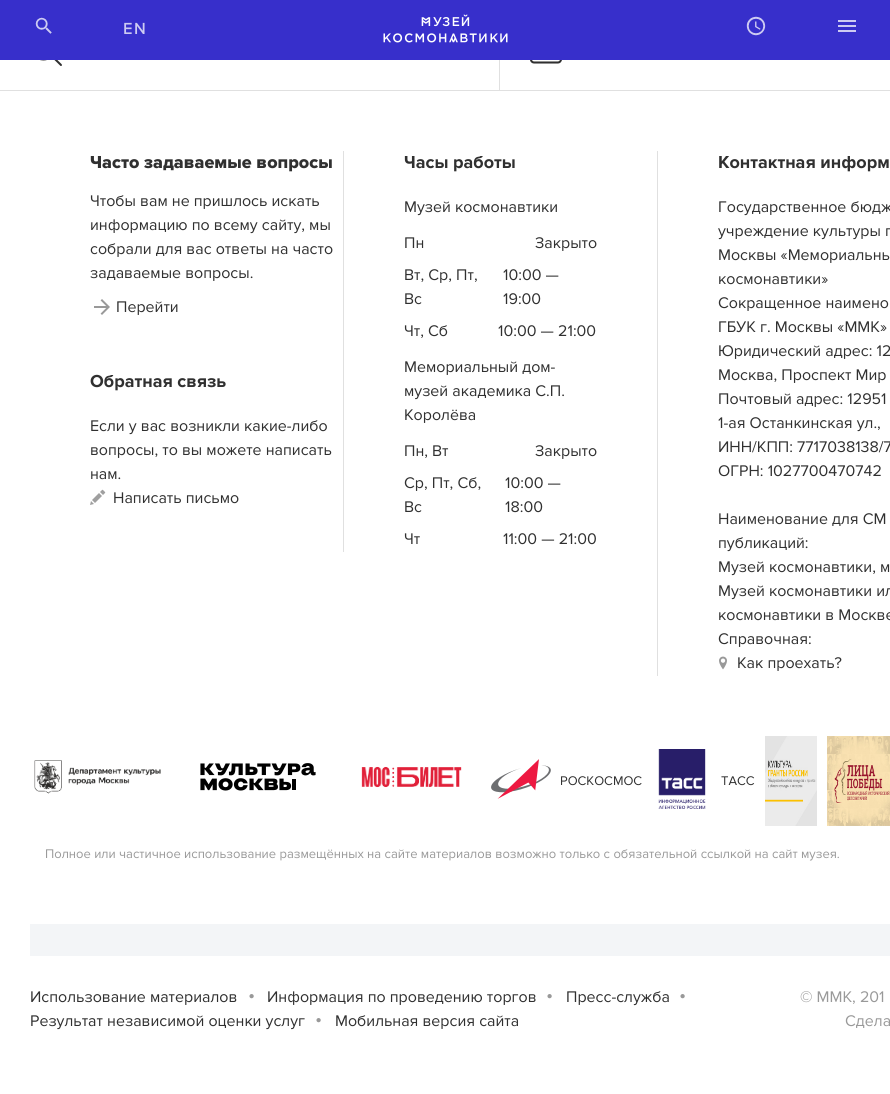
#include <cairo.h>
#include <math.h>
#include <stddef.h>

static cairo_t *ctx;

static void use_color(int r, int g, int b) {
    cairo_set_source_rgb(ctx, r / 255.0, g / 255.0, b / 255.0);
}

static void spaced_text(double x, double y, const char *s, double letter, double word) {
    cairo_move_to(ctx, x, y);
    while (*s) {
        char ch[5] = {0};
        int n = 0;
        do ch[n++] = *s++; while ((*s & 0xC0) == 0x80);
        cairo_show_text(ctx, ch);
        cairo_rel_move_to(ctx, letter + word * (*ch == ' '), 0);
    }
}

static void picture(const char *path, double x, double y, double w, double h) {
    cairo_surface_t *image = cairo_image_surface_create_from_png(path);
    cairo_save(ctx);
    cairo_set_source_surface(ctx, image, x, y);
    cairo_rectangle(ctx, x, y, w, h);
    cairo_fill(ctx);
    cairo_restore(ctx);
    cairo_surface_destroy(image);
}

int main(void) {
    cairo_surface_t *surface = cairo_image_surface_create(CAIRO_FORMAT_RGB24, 890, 1094);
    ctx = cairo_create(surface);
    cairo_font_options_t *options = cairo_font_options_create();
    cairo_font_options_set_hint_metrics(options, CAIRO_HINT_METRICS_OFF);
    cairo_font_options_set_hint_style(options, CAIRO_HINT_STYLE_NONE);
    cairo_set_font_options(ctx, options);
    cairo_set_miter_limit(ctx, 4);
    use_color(255, 255, 255);
    cairo_paint(ctx);
    use_color(55, 47, 203);
    cairo_rectangle(ctx, 0, 0, 890, 60);
    cairo_fill(ctx);
    picture("img1.png", 35, 17, 17, 17);
    cairo_select_font_face(ctx, "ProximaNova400", CAIRO_FONT_SLANT_NORMAL, CAIRO_FONT_WEIGHT_BOLD);
    cairo_set_font_size(ctx, 16);
    use_color(205, 203, 242);
    spaced_text(123, 34, "EN", 2, 0);
    picture("img2.png", 383, 14, 125, 29);
    picture("img3.png", 746, 16, 20, 20);
    picture("img4.png", 838, 20, 18, 12);
    use_color(224, 224, 224);
    cairo_rectangle(ctx, 499, 60, 1, 30);
    cairo_fill(ctx);
    picture("img5.png", 40, 60, 22, 6);
    picture("img6.png", 530, 60, 32, 4);
    cairo_rectangle(ctx, 0, 90, 890, 1);
    cairo_fill(ctx);
    cairo_select_font_face(ctx, "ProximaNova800 ExtraBold", CAIRO_FONT_SLANT_NORMAL, CAIRO_FONT_WEIGHT_NORMAL);
    cairo_set_font_size(ctx, 18);
    use_color(48, 48, 48);
    cairo_move_to(ctx, 90, 168);
    cairo_show_text(ctx, "Часто задаваемые вопросы");
    cairo_select_font_face(ctx, "ProximaNova400", CAIRO_FONT_SLANT_NORMAL, CAIRO_FONT_WEIGHT_NORMAL);
    cairo_set_font_size(ctx, 16);
    cairo_move_to(ctx, 90, 206);
    cairo_show_text(ctx, "Чтобы вам не пришлось искать");
    cairo_move_to(ctx, 90, 230);
    cairo_show_text(ctx, "информацию по всему сайту, мы");
    cairo_move_to(ctx, 90, 254);
    cairo_show_text(ctx, "собрали для вас ответы на часто");
    cairo_move_to(ctx, 90, 278);
    cairo_show_text(ctx, "задаваемые вопросы.");
    picture("img7.png", 94, 299, 16, 16);
    cairo_move_to(ctx, 116, 312);
    cairo_show_text(ctx, "Перейти");
    cairo_select_font_face(ctx, "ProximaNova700", CAIRO_FONT_SLANT_NORMAL, CAIRO_FONT_WEIGHT_BOLD);
    cairo_set_font_size(ctx, 18);
    cairo_move_to(ctx, 90, 387);
    cairo_show_text(ctx, "Обратная связь");
    cairo_select_font_face(ctx, "ProximaNova400", CAIRO_FONT_SLANT_NORMAL, CAIRO_FONT_WEIGHT_NORMAL);
    cairo_set_font_size(ctx, 16);
    cairo_move_to(ctx, 90, 431);
    cairo_show_text(ctx, "Если у вас возникли какие-либо");
    cairo_move_to(ctx, 90, 455);
    cairo_show_text(ctx, "вопросы, то вы можете написать");
    cairo_move_to(ctx, 90, 479);
    cairo_show_text(ctx, "нам.");
    picture("img8.png", 90, 489, 16, 16);
    cairo_move_to(ctx, 113, 503);
    cairo_show_text(ctx, "Написать письмо");
    use_color(224, 224, 224);
    cairo_rectangle(ctx, 343, 151, 1, 401);
    cairo_fill(ctx);
    cairo_select_font_face(ctx, "ProximaNova700", CAIRO_FONT_SLANT_NORMAL, CAIRO_FONT_WEIGHT_BOLD);
    cairo_set_font_size(ctx, 18);
    use_color(48, 48, 48);
    cairo_move_to(ctx, 404, 168);
    cairo_show_text(ctx, "Часы работы");
    cairo_select_font_face(ctx, "ProximaNova400", CAIRO_FONT_SLANT_NORMAL, CAIRO_FONT_WEIGHT_NORMAL);
    cairo_set_font_size(ctx, 16);
    cairo_move_to(ctx, 404, 212);
    cairo_show_text(ctx, "Музей космонавтики");
    cairo_move_to(ctx, 404, 248);
    cairo_show_text(ctx, "Пн");
    cairo_move_to(ctx, 535, 248);
    cairo_show_text(ctx, "Закрыто");
    cairo_move_to(ctx, 404, 280);
    cairo_show_text(ctx, "Вт, Ср, Пт,");
    cairo_move_to(ctx, 404, 304);
    cairo_show_text(ctx, "Вс");
    cairo_move_to(ctx, 503, 280);
    cairo_show_text(ctx, "10:00 —");
    cairo_move_to(ctx, 503, 304);
    cairo_show_text(ctx, "19:00");
    cairo_move_to(ctx, 404, 336);
    cairo_show_text(ctx, "Чт, Сб");
    cairo_move_to(ctx, 498, 336);
    cairo_show_text(ctx, "10:00 — 21:00");
    cairo_move_to(ctx, 404, 372);
    cairo_show_text(ctx, "Мемориальный дом-");
    cairo_move_to(ctx, 404, 396);
    cairo_show_text(ctx, "музей академика С.П.");
    cairo_move_to(ctx, 404, 420);
    cairo_show_text(ctx, "Королёва");
    cairo_move_to(ctx, 404, 456);
    cairo_show_text(ctx, "Пн, Вт");
    cairo_move_to(ctx, 535, 456);
    cairo_show_text(ctx, "Закрыто");
    cairo_move_to(ctx, 404, 488);
    cairo_show_text(ctx, "Ср, Пт, Сб,");
    cairo_move_to(ctx, 404, 512);
    cairo_show_text(ctx, "Вс");
    cairo_move_to(ctx, 505, 488);
    cairo_show_text(ctx, "10:00 —");
    cairo_move_to(ctx, 505, 512);
    cairo_show_text(ctx, "18:00");
    cairo_move_to(ctx, 404, 544);
    cairo_show_text(ctx, "Чт");
    cairo_move_to(ctx, 503, 544);
    cairo_show_text(ctx, "11:00 — 21:00");
    use_color(224, 224, 224);
    cairo_rectangle(ctx, 657, 151, 1, 525);
    cairo_fill(ctx);
    cairo_select_font_face(ctx, "ProximaNova700", CAIRO_FONT_SLANT_NORMAL, CAIRO_FONT_WEIGHT_BOLD);
    cairo_set_font_size(ctx, 18);
    use_color(48, 48, 48);
    cairo_move_to(ctx, 718, 168);
    cairo_show_text(ctx, "Контактная информ");
    cairo_select_font_face(ctx, "ProximaNova400", CAIRO_FONT_SLANT_NORMAL, CAIRO_FONT_WEIGHT_NORMAL);
    cairo_set_font_size(ctx, 16);
    cairo_move_to(ctx, 718, 212);
    cairo_show_text(ctx, "Государственное бюдж");
    cairo_move_to(ctx, 718, 236);
    cairo_show_text(ctx, "учреждение культуры г");
    cairo_move_to(ctx, 718, 260);
    cairo_show_text(ctx, "Москвы «Мемориальны");
    cairo_move_to(ctx, 718, 284);
    cairo_show_text(ctx, "космонавтики»");
    cairo_move_to(ctx, 718, 308);
    cairo_show_text(ctx, "Сокращенное наимено");
    cairo_move_to(ctx, 718, 332);
    cairo_show_text(ctx, "ГБУК г. Москвы «ММК»");
    cairo_move_to(ctx, 718, 356);
    cairo_show_text(ctx, "Юридический адрес: 12");
    cairo_move_to(ctx, 718, 380);
    cairo_show_text(ctx, "Москва, Проспект Мир");
    cairo_move_to(ctx, 718, 404);
    cairo_show_text(ctx, "Почтовый адрес: 12951");
    cairo_move_to(ctx, 718, 428);
    cairo_show_text(ctx, "1-ая Останкинская ул.,");
    cairo_move_to(ctx, 718, 452);
    cairo_show_text(ctx, "ИНН/КПП: 7717038138/7");
    cairo_move_to(ctx, 718, 476);
    cairo_show_text(ctx, "ОГРН: 1027700470742");
    cairo_move_to(ctx, 718, 524);
    cairo_show_text(ctx, "Наименование для СМ");
    cairo_move_to(ctx, 718, 548);
    cairo_show_text(ctx, "публикаций:");
    cairo_move_to(ctx, 718, 572);
    cairo_show_text(ctx, "Музей космонавтики, м");
    cairo_move_to(ctx, 718, 596);
    cairo_show_text(ctx, "Музей космонавтики ил");
    cairo_move_to(ctx, 718, 620);
    cairo_show_text(ctx, "космонавтики в Москве");
    cairo_move_to(ctx, 718, 644);
    cairo_show_text(ctx, "Справочная:");
    picture("img9.png", 719, 656, 8, 14);
    cairo_move_to(ctx, 737, 668);
    cairo_show_text(ctx, "Как проехать?");
    picture("img10.png", 34, 760, 127, 34);
    picture("img11.png", 200, 763, 116, 28);
    picture("img12.png", 361, 766, 101, 22);
    picture("img13.png", 491, 759, 60, 40);
    cairo_set_font_size(ctx, 13);
    cairo_move_to(ctx, 560, 785);
    cairo_show_text(ctx, "РОСКОСМОС");
    picture("img14.png", 658, 749, 48, 60);
    cairo_move_to(ctx, 721, 785);
    cairo_show_text(ctx, "ТАСС");
    picture("img15.png", 765, 736, 52, 90);
    picture("img16.png", 827, 736, 63, 90);
    use_color(153, 153, 153);
    cairo_move_to(ctx, 45, 858);
    cairo_show_text(ctx, "Полное или частичное использование размещённых на сайте материалов возможно только с обязательной ссылкой на сайт музея.");
    use_color(243, 245, 247);
    cairo_rectangle(ctx, 30, 924, 860, 32);
    cairo_fill(ctx);
    cairo_set_font_size(ctx, 16);
    use_color(48, 48, 48);
    cairo_move_to(ctx, 30, 1002);
    cairo_show_text(ctx, "Использование материалов");
    cairo_set_font_size(ctx, 20);
    use_color(153, 153, 153);
    cairo_move_to(ctx, 248, 1001);
    cairo_show_text(ctx, "•");
    cairo_set_font_size(ctx, 16);
    use_color(48, 48, 48);
    cairo_move_to(ctx, 267, 1002);
    cairo_show_text(ctx, "Информация по проведению торгов");
    cairo_set_font_size(ctx, 20);
    use_color(153, 153, 153);
    cairo_move_to(ctx, 546, 1001);
    cairo_show_text(ctx, "•");
    cairo_set_font_size(ctx, 16);
    use_color(48, 48, 48);
    cairo_move_to(ctx, 566, 1002);
    cairo_show_text(ctx, "Пресс-служба");
    cairo_set_font_size(ctx, 20);
    use_color(153, 153, 153);
    cairo_move_to(ctx, 679, 1001);
    cairo_show_text(ctx, "•");
    cairo_set_font_size(ctx, 16);
    use_color(48, 48, 48);
    cairo_move_to(ctx, 30, 1026);
    cairo_show_text(ctx, "Результат независимой оценки услуг");
    cairo_set_font_size(ctx, 20);
    use_color(153, 153, 153);
    cairo_move_to(ctx, 315, 1025);
    cairo_show_text(ctx, "•");
    cairo_set_font_size(ctx, 16);
    use_color(48, 48, 48);
    cairo_move_to(ctx, 335, 1026);
    cairo_show_text(ctx, "Мобильная версия сайта");
    use_color(153, 153, 153);
    cairo_move_to(ctx, 800, 1002);
    cairo_show_text(ctx, "© ММК, 201");
    cairo_move_to(ctx, 845, 1026);
    cairo_show_text(ctx, "Сдела");
    cairo_surface_write_to_png(surface, "result.png");
    cairo_font_options_destroy(options);
    cairo_destroy(ctx);
    cairo_surface_destroy(surface);
    return 0;
}
